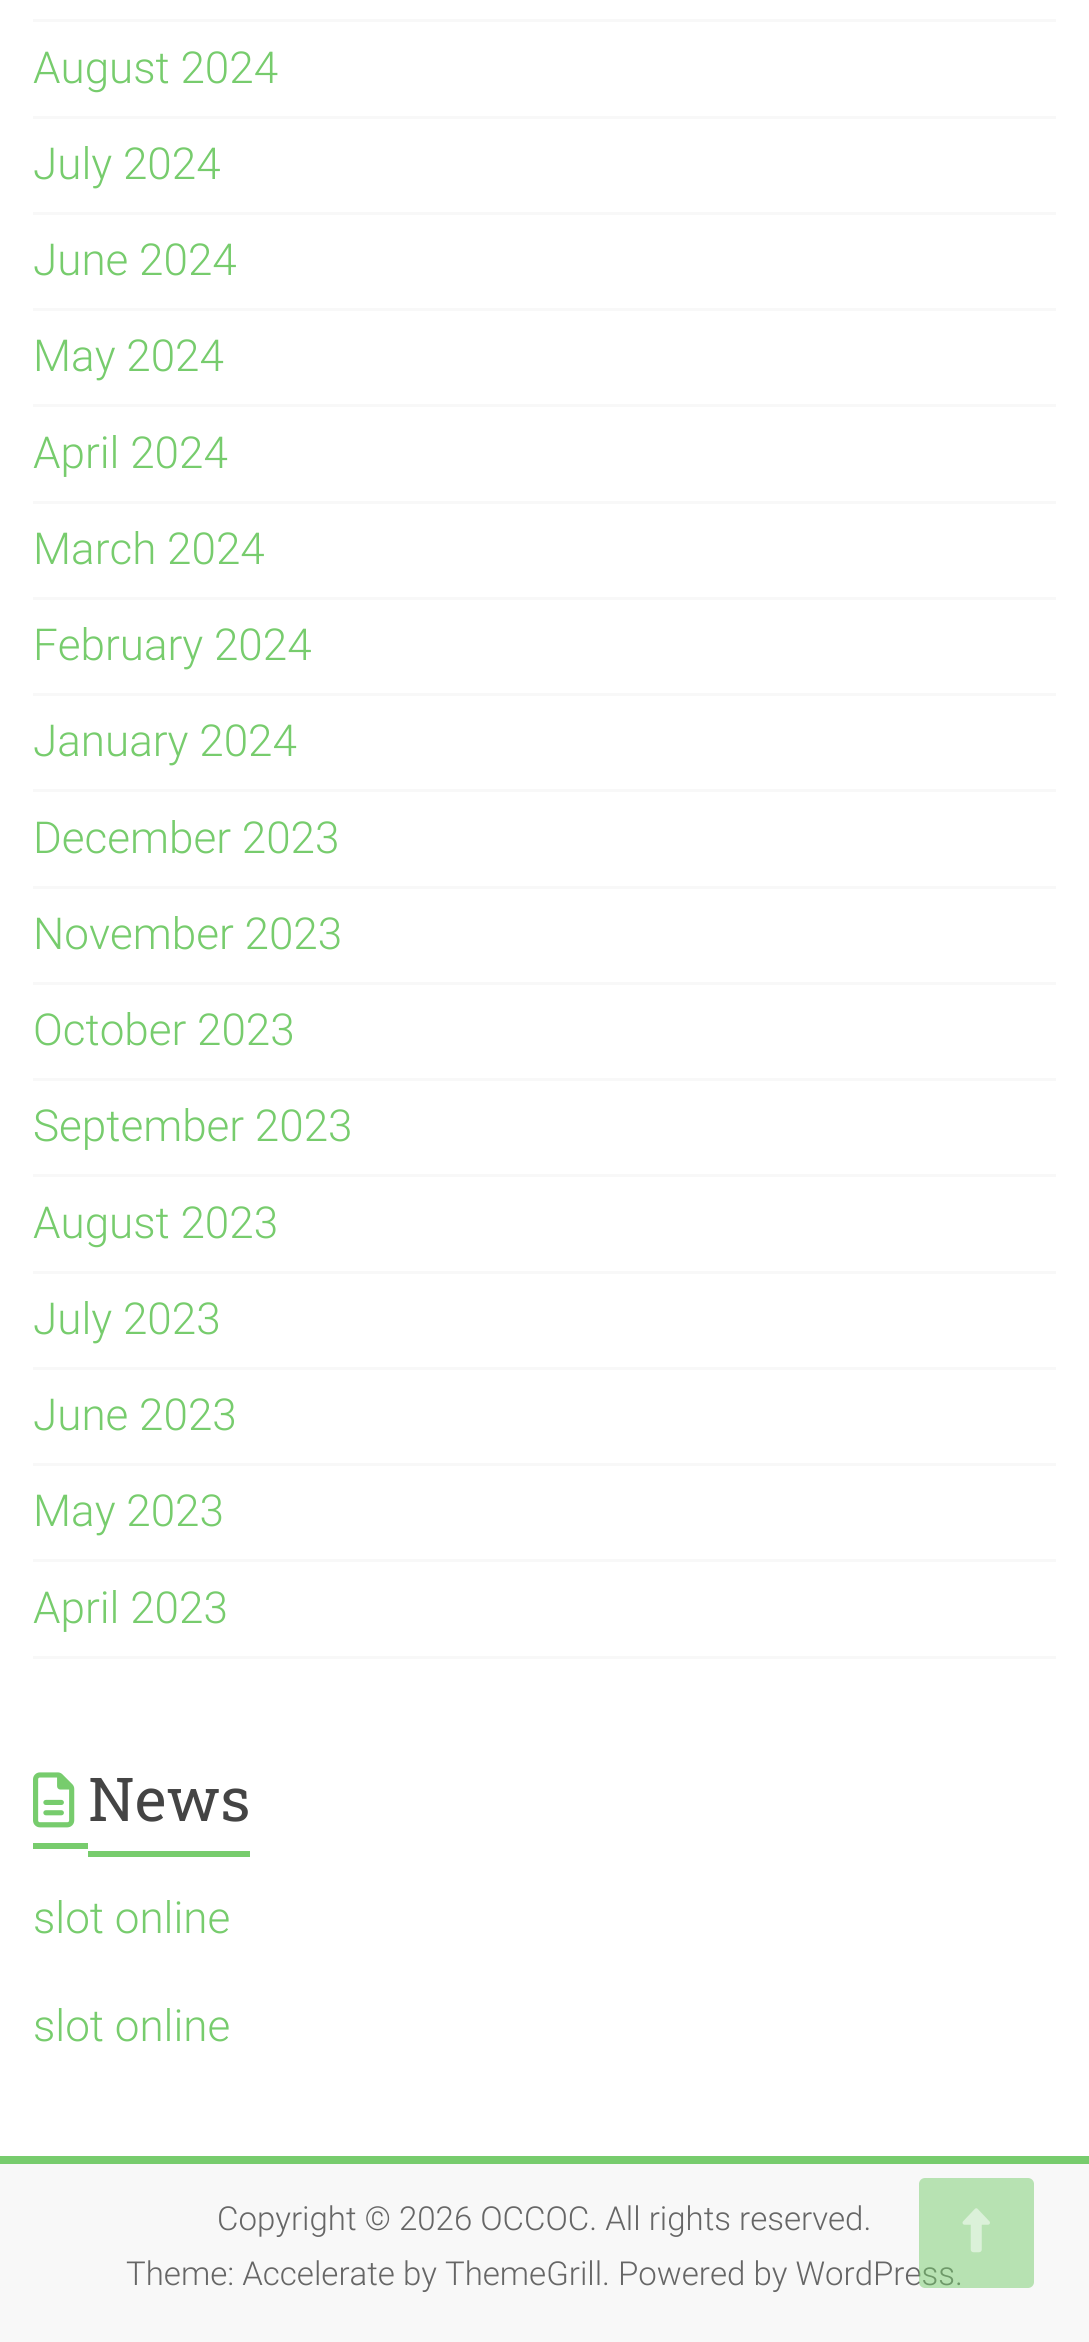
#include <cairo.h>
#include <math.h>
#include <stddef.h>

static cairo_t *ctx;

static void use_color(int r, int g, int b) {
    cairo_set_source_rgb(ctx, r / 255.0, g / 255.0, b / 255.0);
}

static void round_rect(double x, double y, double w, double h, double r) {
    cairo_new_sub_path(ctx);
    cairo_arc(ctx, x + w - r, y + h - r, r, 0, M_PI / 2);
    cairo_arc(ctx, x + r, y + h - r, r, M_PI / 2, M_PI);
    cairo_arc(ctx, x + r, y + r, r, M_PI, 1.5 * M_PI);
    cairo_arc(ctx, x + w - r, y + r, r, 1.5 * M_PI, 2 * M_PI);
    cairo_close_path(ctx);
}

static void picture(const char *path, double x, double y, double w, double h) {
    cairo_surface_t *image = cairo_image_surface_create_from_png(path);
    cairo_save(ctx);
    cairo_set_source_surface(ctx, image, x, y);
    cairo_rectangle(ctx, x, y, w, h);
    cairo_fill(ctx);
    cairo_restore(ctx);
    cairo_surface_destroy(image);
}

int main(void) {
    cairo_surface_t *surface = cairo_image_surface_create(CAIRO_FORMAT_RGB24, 1089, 2342);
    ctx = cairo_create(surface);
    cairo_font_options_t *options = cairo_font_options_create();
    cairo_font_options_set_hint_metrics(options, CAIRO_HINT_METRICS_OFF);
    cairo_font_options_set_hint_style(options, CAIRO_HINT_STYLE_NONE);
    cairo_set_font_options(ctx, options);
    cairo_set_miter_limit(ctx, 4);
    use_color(255, 255, 255);
    cairo_paint(ctx);
    use_color(248, 248, 248);
    cairo_rectangle(ctx, 33, 19, 1023, 3);
    cairo_fill(ctx);
    cairo_rectangle(ctx, 33, 116, 1023, 3);
    cairo_fill(ctx);
    cairo_select_font_face(ctx, "Roboto Light", CAIRO_FONT_SLANT_NORMAL, CAIRO_FONT_WEIGHT_NORMAL);
    cairo_set_font_size(ctx, 44);
    use_color(119, 204, 109);
    cairo_move_to(ctx, 33, 83);
    cairo_show_text(ctx, "August 2024");
    use_color(248, 248, 248);
    cairo_rectangle(ctx, 33, 212, 1023, 3);
    cairo_fill(ctx);
    use_color(119, 204, 109);
    cairo_move_to(ctx, 33, 179);
    cairo_show_text(ctx, "July 2024");
    use_color(248, 248, 248);
    cairo_rectangle(ctx, 33, 308, 1023, 3);
    cairo_fill(ctx);
    use_color(119, 204, 109);
    cairo_move_to(ctx, 33, 275);
    cairo_show_text(ctx, "June 2024");
    use_color(248, 248, 248);
    cairo_rectangle(ctx, 33, 404, 1023, 3);
    cairo_fill(ctx);
    use_color(119, 204, 109);
    cairo_move_to(ctx, 33, 371);
    cairo_show_text(ctx, "May 2024");
    use_color(248, 248, 248);
    cairo_rectangle(ctx, 33, 501, 1023, 3);
    cairo_fill(ctx);
    use_color(119, 204, 109);
    cairo_move_to(ctx, 33, 468);
    cairo_show_text(ctx, "April 2024");
    use_color(248, 248, 248);
    cairo_rectangle(ctx, 33, 597, 1023, 3);
    cairo_fill(ctx);
    use_color(119, 204, 109);
    cairo_move_to(ctx, 33, 564);
    cairo_show_text(ctx, "March 2024");
    use_color(248, 248, 248);
    cairo_rectangle(ctx, 33, 693, 1023, 3);
    cairo_fill(ctx);
    use_color(119, 204, 109);
    cairo_move_to(ctx, 33, 660);
    cairo_show_text(ctx, "February 2024");
    use_color(248, 248, 248);
    cairo_rectangle(ctx, 33, 789, 1023, 3);
    cairo_fill(ctx);
    use_color(119, 204, 109);
    cairo_move_to(ctx, 33, 756);
    cairo_show_text(ctx, "January 2024");
    use_color(248, 248, 248);
    cairo_rectangle(ctx, 33, 886, 1023, 3);
    cairo_fill(ctx);
    use_color(119, 204, 109);
    cairo_move_to(ctx, 33, 853);
    cairo_show_text(ctx, "December 2023");
    use_color(248, 248, 248);
    cairo_rectangle(ctx, 33, 982, 1023, 3);
    cairo_fill(ctx);
    use_color(119, 204, 109);
    cairo_move_to(ctx, 33, 949);
    cairo_show_text(ctx, "November 2023");
    use_color(248, 248, 248);
    cairo_rectangle(ctx, 33, 1078, 1023, 3);
    cairo_fill(ctx);
    use_color(119, 204, 109);
    cairo_move_to(ctx, 33, 1045);
    cairo_show_text(ctx, "October 2023");
    use_color(248, 248, 248);
    cairo_rectangle(ctx, 33, 1174, 1023, 3);
    cairo_fill(ctx);
    use_color(119, 204, 109);
    cairo_move_to(ctx, 33, 1141);
    cairo_show_text(ctx, "September 2023");
    use_color(248, 248, 248);
    cairo_rectangle(ctx, 33, 1271, 1023, 3);
    cairo_fill(ctx);
    use_color(119, 204, 109);
    cairo_move_to(ctx, 33, 1238);
    cairo_show_text(ctx, "August 2023");
    use_color(248, 248, 248);
    cairo_rectangle(ctx, 33, 1367, 1023, 3);
    cairo_fill(ctx);
    use_color(119, 204, 109);
    cairo_move_to(ctx, 33, 1334);
    cairo_show_text(ctx, "July 2023");
    use_color(248, 248, 248);
    cairo_rectangle(ctx, 33, 1463, 1023, 3);
    cairo_fill(ctx);
    use_color(119, 204, 109);
    cairo_move_to(ctx, 33, 1430);
    cairo_show_text(ctx, "June 2023");
    use_color(248, 248, 248);
    cairo_rectangle(ctx, 33, 1559, 1023, 3);
    cairo_fill(ctx);
    use_color(119, 204, 109);
    cairo_move_to(ctx, 33, 1526);
    cairo_show_text(ctx, "May 2023");
    use_color(248, 248, 248);
    cairo_rectangle(ctx, 33, 1656, 1023, 3);
    cairo_fill(ctx);
    use_color(119, 204, 109);
    cairo_move_to(ctx, 33, 1623);
    cairo_show_text(ctx, "April 2023");
    picture("img1.png", 33, 1772, 42, 56);
    cairo_select_font_face(ctx, "Roboto Slab", CAIRO_FONT_SLANT_NORMAL, CAIRO_FONT_WEIGHT_NORMAL);
    cairo_set_font_size(ctx, 60.5);
    use_color(68, 68, 68);
    cairo_move_to(ctx, 88, 1821);
    cairo_show_text(ctx, "News");
    use_color(119, 204, 109);
    cairo_rectangle(ctx, 33, 1843, 55, 6);
    cairo_fill(ctx);
    cairo_rectangle(ctx, 88, 1851, 162, 6);
    cairo_fill(ctx);
    cairo_select_font_face(ctx, "Roboto Light", CAIRO_FONT_SLANT_NORMAL, CAIRO_FONT_WEIGHT_NORMAL);
    cairo_set_font_size(ctx, 44);
    cairo_move_to(ctx, 33, 1933);
    cairo_show_text(ctx, "slot online");
    cairo_move_to(ctx, 33, 2041);
    cairo_show_text(ctx, "slot online");
    use_color(248, 248, 248);
    cairo_rectangle(ctx, 0, 2164, 1089, 178);
    cairo_fill(ctx);
    use_color(119, 204, 109);
    cairo_rectangle(ctx, 0, 2156, 1089, 8);
    cairo_fill(ctx);
    cairo_set_font_size(ctx, 33);
    use_color(102, 102, 102);
    cairo_move_to(ctx, 217, 2230);
    cairo_show_text(ctx, "Copyright © 2026 OCCOC. All rights reserved.");
    cairo_move_to(ctx, 126, 2285);
    cairo_show_text(ctx, "Theme: Accelerate by ThemeGrill. Powered by WordPress.");
    cairo_set_source_rgba(ctx, 0.467, 0.8, 0.427, 0.5);
    round_rect(919, 2178, 115, 110, 6);
    cairo_fill(ctx);
    picture("img2.png", 962, 2208, 28, 45);
    cairo_surface_write_to_png(surface, "result.png");
    cairo_font_options_destroy(options);
    cairo_destroy(ctx);
    cairo_surface_destroy(surface);
    return 0;
}
